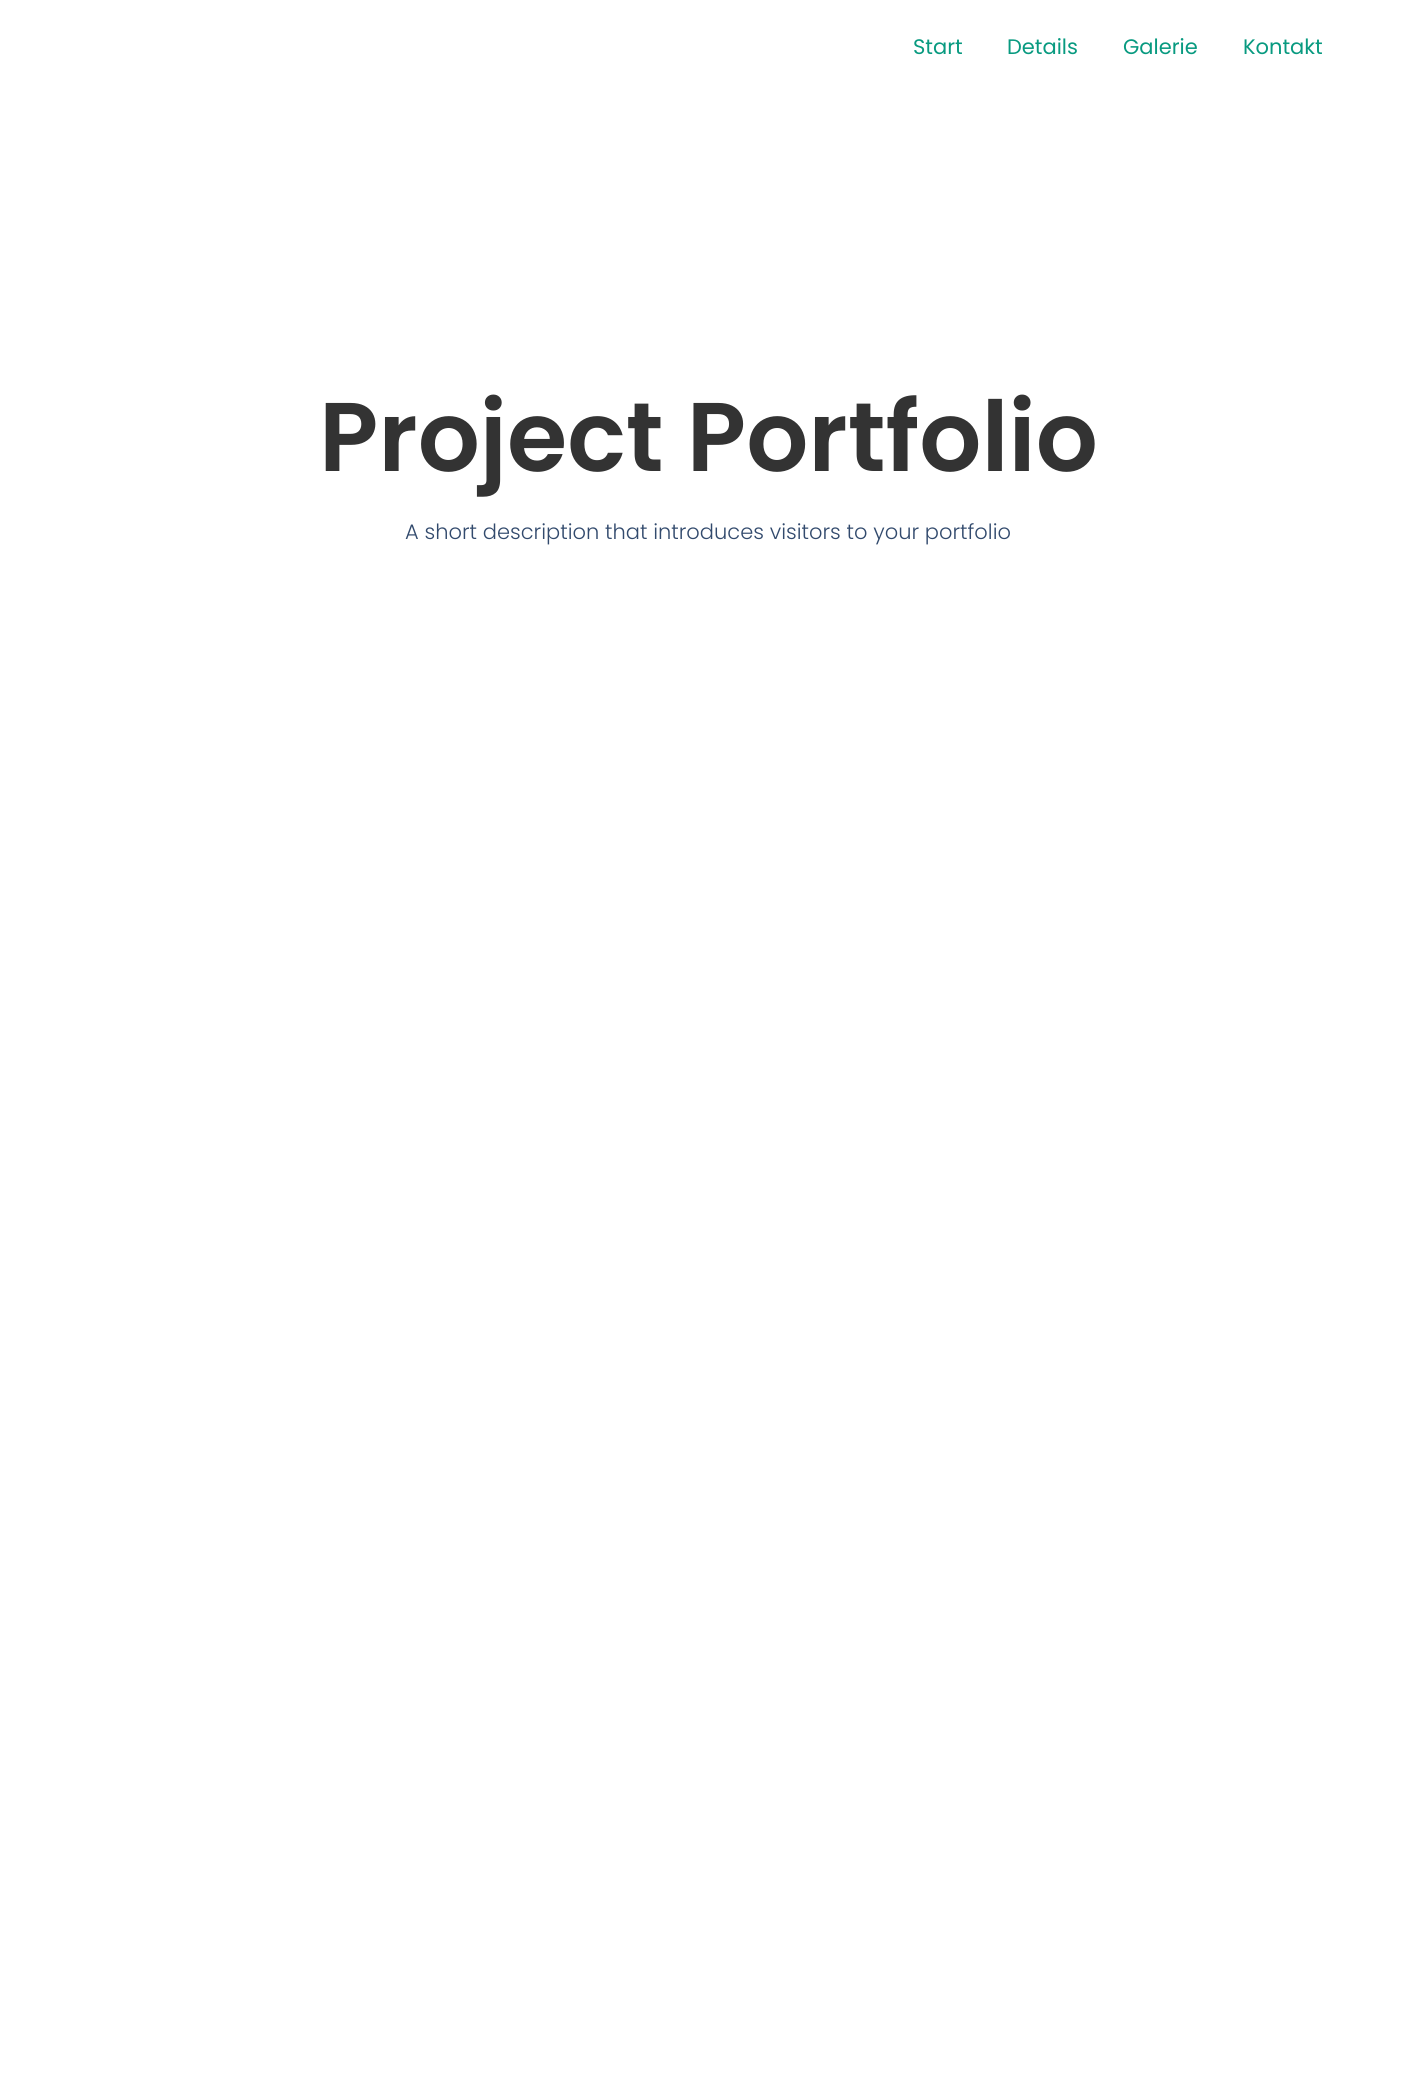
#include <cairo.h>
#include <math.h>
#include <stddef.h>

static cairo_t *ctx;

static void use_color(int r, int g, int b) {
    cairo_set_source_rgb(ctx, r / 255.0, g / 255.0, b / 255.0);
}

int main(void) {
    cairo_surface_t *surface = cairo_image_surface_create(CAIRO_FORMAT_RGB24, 1415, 2085);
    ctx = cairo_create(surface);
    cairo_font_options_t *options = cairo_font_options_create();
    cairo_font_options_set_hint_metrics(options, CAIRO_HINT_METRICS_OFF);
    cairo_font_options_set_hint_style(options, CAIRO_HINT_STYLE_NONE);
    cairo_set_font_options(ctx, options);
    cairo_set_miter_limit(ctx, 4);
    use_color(255, 255, 255);
    cairo_paint(ctx);
    cairo_select_font_face(ctx, "Poppins", CAIRO_FONT_SLANT_NORMAL, CAIRO_FONT_WEIGHT_NORMAL);
    cairo_set_font_size(ctx, 21);
    use_color(8, 154, 128);
    cairo_move_to(ctx, 913, 54);
    cairo_show_text(ctx, "Start");
    cairo_move_to(ctx, 1007, 54);
    cairo_show_text(ctx, "Details");
    cairo_move_to(ctx, 1123, 54);
    cairo_show_text(ctx, "Galerie");
    cairo_move_to(ctx, 1243, 54);
    cairo_show_text(ctx, "Kontakt");
    cairo_select_font_face(ctx, "Poppins SemiBold", CAIRO_FONT_SLANT_NORMAL, CAIRO_FONT_WEIGHT_NORMAL);
    cairo_set_font_size(ctx, 97.5);
    use_color(51, 51, 51);
    cairo_move_to(ctx, 319, 471);
    cairo_show_text(ctx, "Project Portfolio");
    cairo_select_font_face(ctx, "Poppins Light", CAIRO_FONT_SLANT_NORMAL, CAIRO_FONT_WEIGHT_NORMAL);
    cairo_set_font_size(ctx, 21);
    use_color(50, 74, 109);
    cairo_move_to(ctx, 405, 539);
    cairo_show_text(ctx, "A short description that introduces visitors to your portfolio");
    cairo_surface_write_to_png(surface, "result.png");
    cairo_font_options_destroy(options);
    cairo_destroy(ctx);
    cairo_surface_destroy(surface);
    return 0;
}
